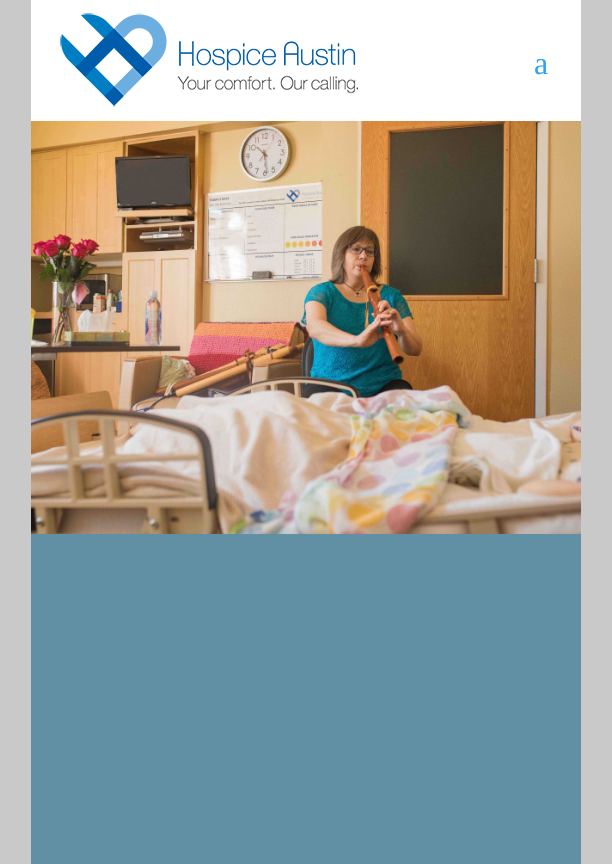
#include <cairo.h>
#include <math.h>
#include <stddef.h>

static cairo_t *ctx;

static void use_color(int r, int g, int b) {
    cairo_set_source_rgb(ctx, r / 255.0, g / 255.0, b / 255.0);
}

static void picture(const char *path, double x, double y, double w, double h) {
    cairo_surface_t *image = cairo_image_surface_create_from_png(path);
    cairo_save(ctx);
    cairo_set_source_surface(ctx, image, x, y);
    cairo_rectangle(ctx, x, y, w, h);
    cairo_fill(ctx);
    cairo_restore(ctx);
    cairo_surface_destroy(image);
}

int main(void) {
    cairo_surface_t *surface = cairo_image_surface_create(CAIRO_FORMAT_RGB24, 612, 864);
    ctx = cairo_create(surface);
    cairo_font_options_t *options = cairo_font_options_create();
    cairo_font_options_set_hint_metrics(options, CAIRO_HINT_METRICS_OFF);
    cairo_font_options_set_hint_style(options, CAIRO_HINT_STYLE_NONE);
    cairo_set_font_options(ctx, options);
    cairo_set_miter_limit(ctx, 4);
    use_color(201, 201, 201);
    cairo_paint(ctx);
    use_color(255, 255, 255);
    cairo_rectangle(ctx, 31, 0, 550, 121);
    cairo_fill(ctx);
    picture("img1.png", 60, 13, 298, 94);
    cairo_select_font_face(ctx, "Liberation Serif", CAIRO_FONT_SLANT_NORMAL, CAIRO_FONT_WEIGHT_NORMAL);
    cairo_set_font_size(ctx, 32);
    use_color(46, 163, 242);
    cairo_move_to(ctx, 534, 74);
    cairo_show_text(ctx, "a");
    picture("img2.png", 31, 121, 550, 413);
    use_color(97, 143, 164);
    cairo_rectangle(ctx, 31, 534, 550, 330);
    cairo_fill(ctx);
    cairo_surface_write_to_png(surface, "result.png");
    cairo_font_options_destroy(options);
    cairo_destroy(ctx);
    cairo_surface_destroy(surface);
    return 0;
}
